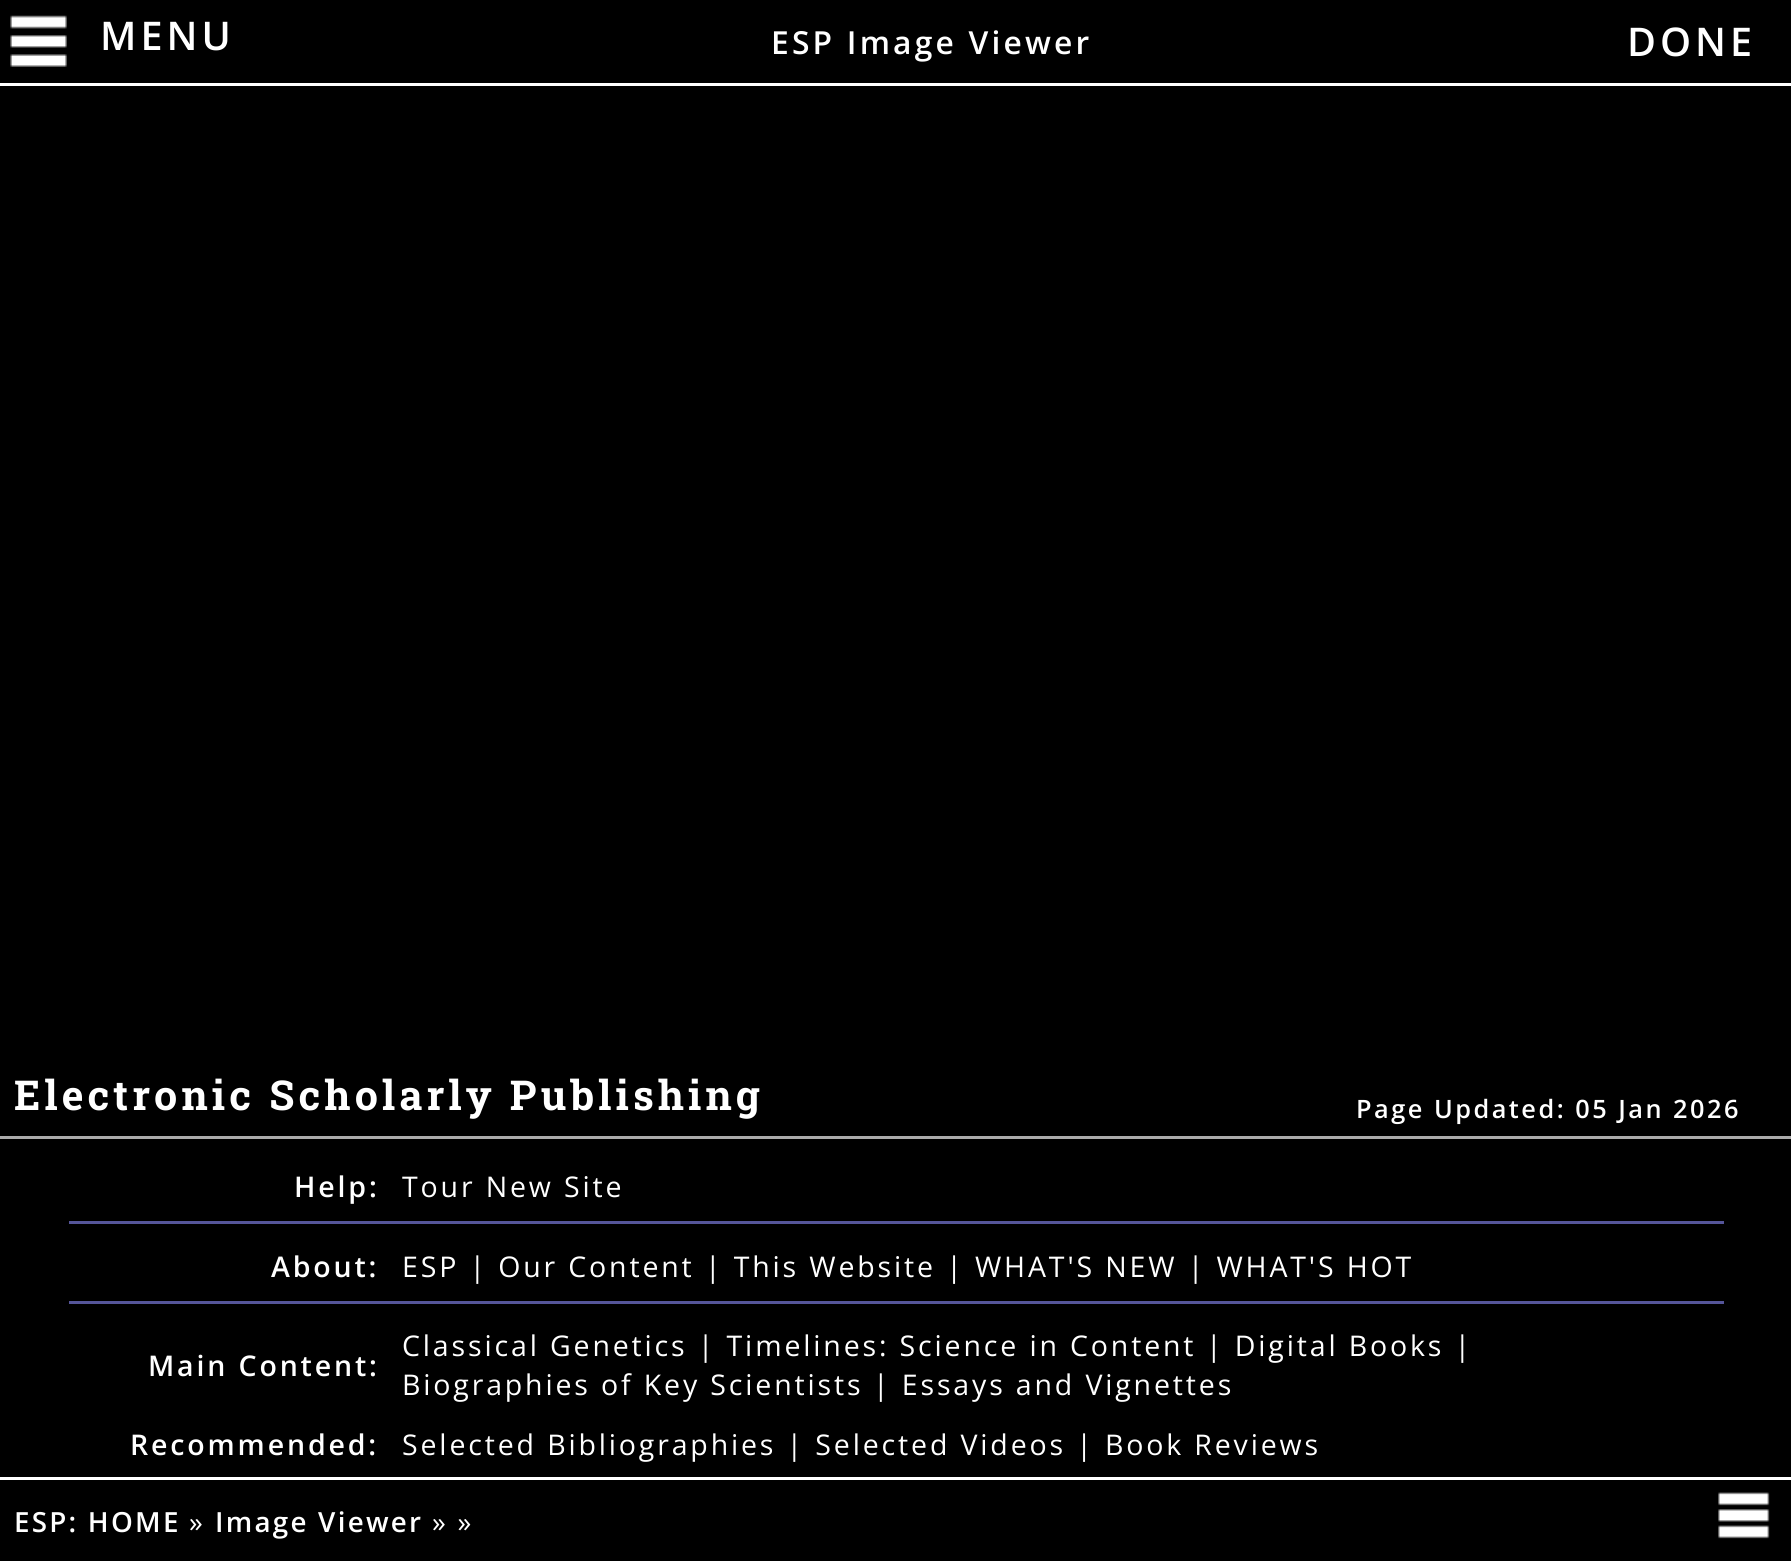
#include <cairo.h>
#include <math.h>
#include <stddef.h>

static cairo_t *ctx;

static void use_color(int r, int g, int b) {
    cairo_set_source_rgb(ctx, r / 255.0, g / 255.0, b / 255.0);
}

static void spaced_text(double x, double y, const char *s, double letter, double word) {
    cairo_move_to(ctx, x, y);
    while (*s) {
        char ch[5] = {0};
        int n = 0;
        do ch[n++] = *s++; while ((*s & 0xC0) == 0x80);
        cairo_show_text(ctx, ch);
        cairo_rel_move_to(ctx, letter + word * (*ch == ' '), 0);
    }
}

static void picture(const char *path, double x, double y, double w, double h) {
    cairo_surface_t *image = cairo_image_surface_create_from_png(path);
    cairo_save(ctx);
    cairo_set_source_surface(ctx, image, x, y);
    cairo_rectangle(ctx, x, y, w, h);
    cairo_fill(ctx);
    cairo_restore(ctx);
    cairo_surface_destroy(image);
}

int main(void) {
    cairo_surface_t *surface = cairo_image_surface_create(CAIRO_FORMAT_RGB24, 1791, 1561);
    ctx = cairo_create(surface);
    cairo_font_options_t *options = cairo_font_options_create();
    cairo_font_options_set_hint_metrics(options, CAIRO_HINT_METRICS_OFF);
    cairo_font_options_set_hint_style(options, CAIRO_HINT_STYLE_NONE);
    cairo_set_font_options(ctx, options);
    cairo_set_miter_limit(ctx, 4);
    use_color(0, 0, 0);
    cairo_paint(ctx);
    use_color(255, 255, 255);
    cairo_rectangle(ctx, 0, 83, 1791, 3);
    cairo_fill(ctx);
    picture("img1.png", 10, 15, 57, 52);
    cairo_select_font_face(ctx, "Open Sans SemiBold", CAIRO_FONT_SLANT_NORMAL, CAIRO_FONT_WEIGHT_NORMAL);
    cairo_set_font_size(ctx, 39.5);
    spaced_text(100, 50, "MENU", 4, 0);
    cairo_set_font_size(ctx, 31.75);
    spaced_text(771, 54, "ESP Image Viewer", 3.2, 0);
    cairo_set_font_size(ctx, 39.5);
    spaced_text(1627, 56, "DONE", 4, 0);
    cairo_select_font_face(ctx, "Roboto Slab", CAIRO_FONT_SLANT_NORMAL, CAIRO_FONT_WEIGHT_BOLD);
    cairo_set_font_size(ctx, 41.2);
    spaced_text(14, 1110, "Electronic Scholarly Publishing", 4.1, 0);
    cairo_select_font_face(ctx, "Open Sans SemiBold", CAIRO_FONT_SLANT_NORMAL, CAIRO_FONT_WEIGHT_NORMAL);
    cairo_set_font_size(ctx, 25.3);
    spaced_text(1356, 1118, "Page Updated: 05 Jan 2026", 2.5, 0);
    use_color(170, 170, 170);
    cairo_rectangle(ctx, 0, 1136, 1791, 3);
    cairo_fill(ctx);
    use_color(85, 85, 153);
    cairo_rectangle(ctx, 69, 1221, 1655, 3);
    cairo_fill(ctx);
    cairo_set_font_size(ctx, 28.5);
    use_color(255, 255, 255);
    spaced_text(294, 1197, "Help:", 2.85, 0);
    cairo_select_font_face(ctx, "Open Sans", CAIRO_FONT_SLANT_NORMAL, CAIRO_FONT_WEIGHT_NORMAL);
    spaced_text(402, 1197, "Tour New Site", 2.85, 0);
    use_color(85, 85, 153);
    cairo_rectangle(ctx, 69, 1301, 1655, 3);
    cairo_fill(ctx);
    cairo_select_font_face(ctx, "Open Sans SemiBold", CAIRO_FONT_SLANT_NORMAL, CAIRO_FONT_WEIGHT_NORMAL);
    use_color(255, 255, 255);
    spaced_text(271, 1277, "About:", 2.85, 0);
    cairo_select_font_face(ctx, "Open Sans", CAIRO_FONT_SLANT_NORMAL, CAIRO_FONT_WEIGHT_NORMAL);
    spaced_text(402, 1277, "ESP | Our Content | This Website | WHAT'S NEW | WHAT'S HOT", 2.85, 0);
    cairo_select_font_face(ctx, "Open Sans SemiBold", CAIRO_FONT_SLANT_NORMAL, CAIRO_FONT_WEIGHT_NORMAL);
    spaced_text(148, 1376, "Main Content:", 2.85, 0);
    cairo_select_font_face(ctx, "Open Sans", CAIRO_FONT_SLANT_NORMAL, CAIRO_FONT_WEIGHT_NORMAL);
    spaced_text(402, 1356, "Classical Genetics | Timelines: Science in Content", 2.85, 0);
    spaced_text(1206, 1356, "| Digital Books |", 2.85, 0);
    spaced_text(402, 1395, "Biographies of Key Scientists", 2.85, 0);
    spaced_text(873, 1395, "| Essays and Vignettes", 2.85, 0);
    cairo_select_font_face(ctx, "Open Sans SemiBold", CAIRO_FONT_SLANT_NORMAL, CAIRO_FONT_WEIGHT_NORMAL);
    spaced_text(130, 1455, "Recommended:", 2.85, 0);
    cairo_select_font_face(ctx, "Open Sans", CAIRO_FONT_SLANT_NORMAL, CAIRO_FONT_WEIGHT_NORMAL);
    spaced_text(402, 1455, "Selected Bibliographies | Selected Videos | Book Reviews", 2.85, 0);
    cairo_rectangle(ctx, 0, 1477, 1791, 3);
    cairo_fill(ctx);
    cairo_select_font_face(ctx, "Open Sans SemiBold", CAIRO_FONT_SLANT_NORMAL, CAIRO_FONT_WEIGHT_NORMAL);
    cairo_set_font_size(ctx, 27.75);
    spaced_text(14, 1532, "ESP: HOME", 2.25, 0);
    cairo_select_font_face(ctx, "Open Sans", CAIRO_FONT_SLANT_NORMAL, CAIRO_FONT_WEIGHT_NORMAL);
    spaced_text(189, 1532, "»", 2.25, 0);
    cairo_select_font_face(ctx, "Open Sans SemiBold", CAIRO_FONT_SLANT_NORMAL, CAIRO_FONT_WEIGHT_NORMAL);
    spaced_text(215, 1532, "Image Viewer", 2.25, 0);
    cairo_select_font_face(ctx, "Open Sans", CAIRO_FONT_SLANT_NORMAL, CAIRO_FONT_WEIGHT_NORMAL);
    spaced_text(432, 1532, "» »", 2.25, 0);
    picture("img2.png", 1718, 1492, 52, 47);
    cairo_surface_write_to_png(surface, "result.png");
    cairo_font_options_destroy(options);
    cairo_destroy(ctx);
    cairo_surface_destroy(surface);
    return 0;
}
